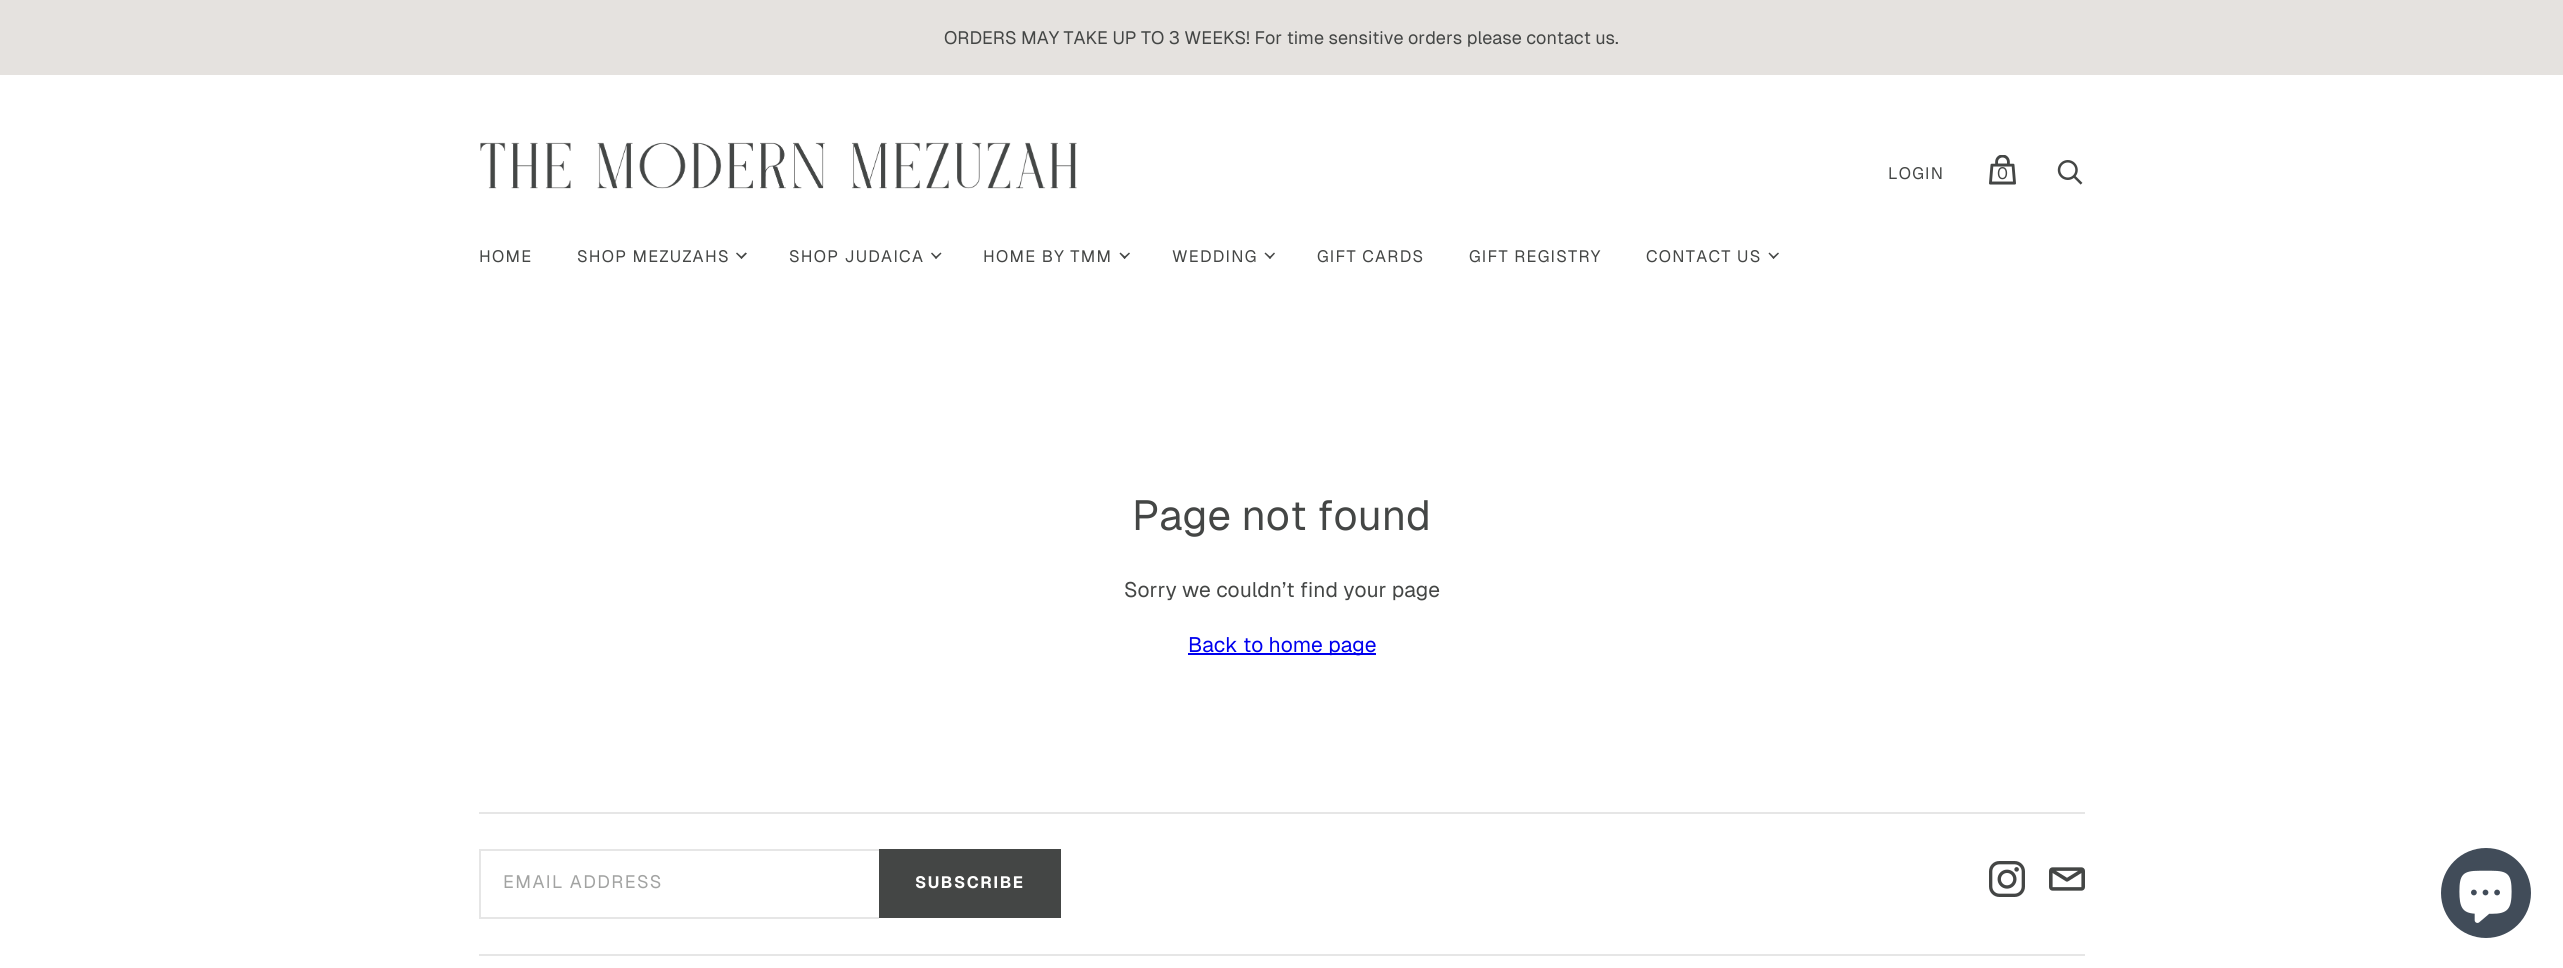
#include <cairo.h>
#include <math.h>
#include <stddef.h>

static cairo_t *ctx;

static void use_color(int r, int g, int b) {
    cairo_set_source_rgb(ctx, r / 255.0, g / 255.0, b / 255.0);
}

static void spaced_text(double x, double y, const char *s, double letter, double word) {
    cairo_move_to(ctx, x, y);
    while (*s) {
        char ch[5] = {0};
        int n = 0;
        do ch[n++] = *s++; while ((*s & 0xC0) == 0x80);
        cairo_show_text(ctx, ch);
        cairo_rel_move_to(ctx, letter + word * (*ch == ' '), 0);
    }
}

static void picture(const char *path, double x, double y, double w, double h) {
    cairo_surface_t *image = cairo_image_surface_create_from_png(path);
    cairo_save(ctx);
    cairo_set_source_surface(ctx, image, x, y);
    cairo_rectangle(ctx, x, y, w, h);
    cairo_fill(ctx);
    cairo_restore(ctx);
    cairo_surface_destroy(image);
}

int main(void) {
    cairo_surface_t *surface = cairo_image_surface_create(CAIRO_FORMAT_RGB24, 2563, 968);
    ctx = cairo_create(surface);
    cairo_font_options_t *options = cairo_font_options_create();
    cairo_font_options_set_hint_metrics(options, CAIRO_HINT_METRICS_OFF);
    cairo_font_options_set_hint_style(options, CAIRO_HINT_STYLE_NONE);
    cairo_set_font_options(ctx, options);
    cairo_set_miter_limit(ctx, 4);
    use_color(255, 255, 255);
    cairo_paint(ctx);
    use_color(229, 226, 223);
    cairo_rectangle(ctx, 0, 0, 2563, 75);
    cairo_fill(ctx);
    cairo_select_font_face(ctx, "Geist", CAIRO_FONT_SLANT_NORMAL, CAIRO_FONT_WEIGHT_NORMAL);
    cairo_set_font_size(ctx, 18);
    use_color(68, 70, 69);
    cairo_move_to(ctx, 944, 44);
    cairo_show_text(ctx, "ORDERS MAY TAKE UP TO 3 WEEKS! For time sensitive orders please contact us.");
    picture("img1.png", 480, 142, 597, 47);
    cairo_set_font_size(ctx, 16.5);
    spaced_text(1888, 179, "LOGIN", 1.25, 0);
    picture("img2.png", 1989, 155, 27, 30);
    cairo_move_to(ctx, 1997, 179);
    cairo_show_text(ctx, "0");
    picture("img3.png", 2057, 160, 26, 25);
    spaced_text(479, 262, "HOME", 1.25, 0);
    spaced_text(577, 262, "SHOP MEZUZAHS", 1.25, 0);
    cairo_new_path(ctx);
    cairo_move_to(ctx, 740.5, 257.5);
    cairo_line_to(ctx, 745.5, 252.5);
    cairo_line_to(ctx, 747, 253.5);
    cairo_line_to(ctx, 741.5, 259);
    cairo_close_path(ctx);
    cairo_fill(ctx);
    cairo_new_path(ctx);
    cairo_move_to(ctx, 736, 253.5);
    cairo_line_to(ctx, 737, 252.5);
    cairo_line_to(ctx, 742.5, 257.5);
    cairo_line_to(ctx, 741.5, 259);
    cairo_close_path(ctx);
    cairo_fill(ctx);
    spaced_text(789, 262, "SHOP JUDAICA", 1.25, 0);
    cairo_new_path(ctx);
    cairo_move_to(ctx, 935, 257.5);
    cairo_line_to(ctx, 940.5, 252.5);
    cairo_line_to(ctx, 941.5, 253.5);
    cairo_line_to(ctx, 936, 259);
    cairo_close_path(ctx);
    cairo_fill(ctx);
    cairo_new_path(ctx);
    cairo_move_to(ctx, 931, 253.5);
    cairo_line_to(ctx, 932, 252.5);
    cairo_line_to(ctx, 937, 257.5);
    cairo_line_to(ctx, 936, 259);
    cairo_close_path(ctx);
    cairo_fill(ctx);
    spaced_text(983, 262, "HOME BY TMM", 1.25, 0);
    cairo_new_path(ctx);
    cairo_move_to(ctx, 1123.5, 257.5);
    cairo_line_to(ctx, 1129, 252.5);
    cairo_line_to(ctx, 1130, 253.5);
    cairo_line_to(ctx, 1124.5, 259);
    cairo_close_path(ctx);
    cairo_fill(ctx);
    cairo_new_path(ctx);
    cairo_move_to(ctx, 1119.5, 253.5);
    cairo_line_to(ctx, 1120.5, 252.5);
    cairo_line_to(ctx, 1126, 257.5);
    cairo_line_to(ctx, 1124.5, 259);
    cairo_close_path(ctx);
    cairo_fill(ctx);
    spaced_text(1172, 262, "WEDDING", 1.25, 0);
    cairo_new_path(ctx);
    cairo_move_to(ctx, 1269, 257.5);
    cairo_line_to(ctx, 1274, 252.5);
    cairo_line_to(ctx, 1275, 253.5);
    cairo_line_to(ctx, 1270, 259);
    cairo_close_path(ctx);
    cairo_fill(ctx);
    cairo_new_path(ctx);
    cairo_move_to(ctx, 1264.5, 253.5);
    cairo_line_to(ctx, 1265.5, 252.5);
    cairo_line_to(ctx, 1271, 257.5);
    cairo_line_to(ctx, 1270, 259);
    cairo_close_path(ctx);
    cairo_fill(ctx);
    spaced_text(1317, 262, "GIFT CARDS", 1.25, 0);
    spaced_text(1469, 262, "GIFT REGISTRY", 1.25, 0);
    spaced_text(1646, 262, "CONTACT US", 1.25, 0);
    cairo_new_path(ctx);
    cairo_move_to(ctx, 1772.5, 257.5);
    cairo_line_to(ctx, 1778, 252.5);
    cairo_line_to(ctx, 1779, 253.5);
    cairo_line_to(ctx, 1773.5, 259);
    cairo_close_path(ctx);
    cairo_fill(ctx);
    cairo_new_path(ctx);
    cairo_move_to(ctx, 1768.5, 253.5);
    cairo_line_to(ctx, 1769.5, 252.5);
    cairo_line_to(ctx, 1774.5, 257.5);
    cairo_line_to(ctx, 1773.5, 259);
    cairo_close_path(ctx);
    cairo_fill(ctx);
    cairo_set_font_size(ctx, 42);
    cairo_move_to(ctx, 1132, 530);
    cairo_show_text(ctx, "Page not found");
    cairo_set_font_size(ctx, 21);
    cairo_move_to(ctx, 1124, 597);
    cairo_show_text(ctx, "Sorry we couldn’t find your page");
    use_color(0, 0, 238);
    cairo_rectangle(ctx, 1188, 653, 188, 2);
    cairo_fill(ctx);
    cairo_move_to(ctx, 1188, 652);
    cairo_show_text(ctx, "Back to home page");
    use_color(230, 230, 230);
    cairo_rectangle(ctx, 479, 812, 1606, 2);
    cairo_fill(ctx);
    cairo_rectangle(ctx, 479, 849, 400, 2);
    cairo_fill(ctx);
    cairo_rectangle(ctx, 479, 917, 400, 2);
    cairo_fill(ctx);
    cairo_rectangle(ctx, 479, 849, 2, 69);
    cairo_fill(ctx);
    cairo_set_font_size(ctx, 18);
    use_color(162, 163, 162);
    spaced_text(503, 888, "EMAIL ADDRESS", 1.4, 0);
    use_color(68, 70, 69);
    cairo_rectangle(ctx, 879, 849, 182, 69);
    cairo_fill(ctx);
    cairo_select_font_face(ctx, "Geist", CAIRO_FONT_SLANT_NORMAL, CAIRO_FONT_WEIGHT_BOLD);
    cairo_set_font_size(ctx, 16.5);
    use_color(255, 255, 255);
    spaced_text(915, 888, "SUBSCRIBE", 1.5, 0);
    picture("img4.png", 1989, 861, 36, 36);
    picture("img5.png", 2049, 867, 36, 24);
    use_color(230, 230, 230);
    cairo_rectangle(ctx, 479, 954, 1606, 2);
    cairo_fill(ctx);
    use_color(65, 76, 89);
    cairo_arc(ctx, 2486, 893, 45, 0, 2 * M_PI);
    cairo_fill(ctx);
    picture("img6.png", 2459, 870, 53, 53);
    cairo_surface_write_to_png(surface, "result.png");
    cairo_font_options_destroy(options);
    cairo_destroy(ctx);
    cairo_surface_destroy(surface);
    return 0;
}
